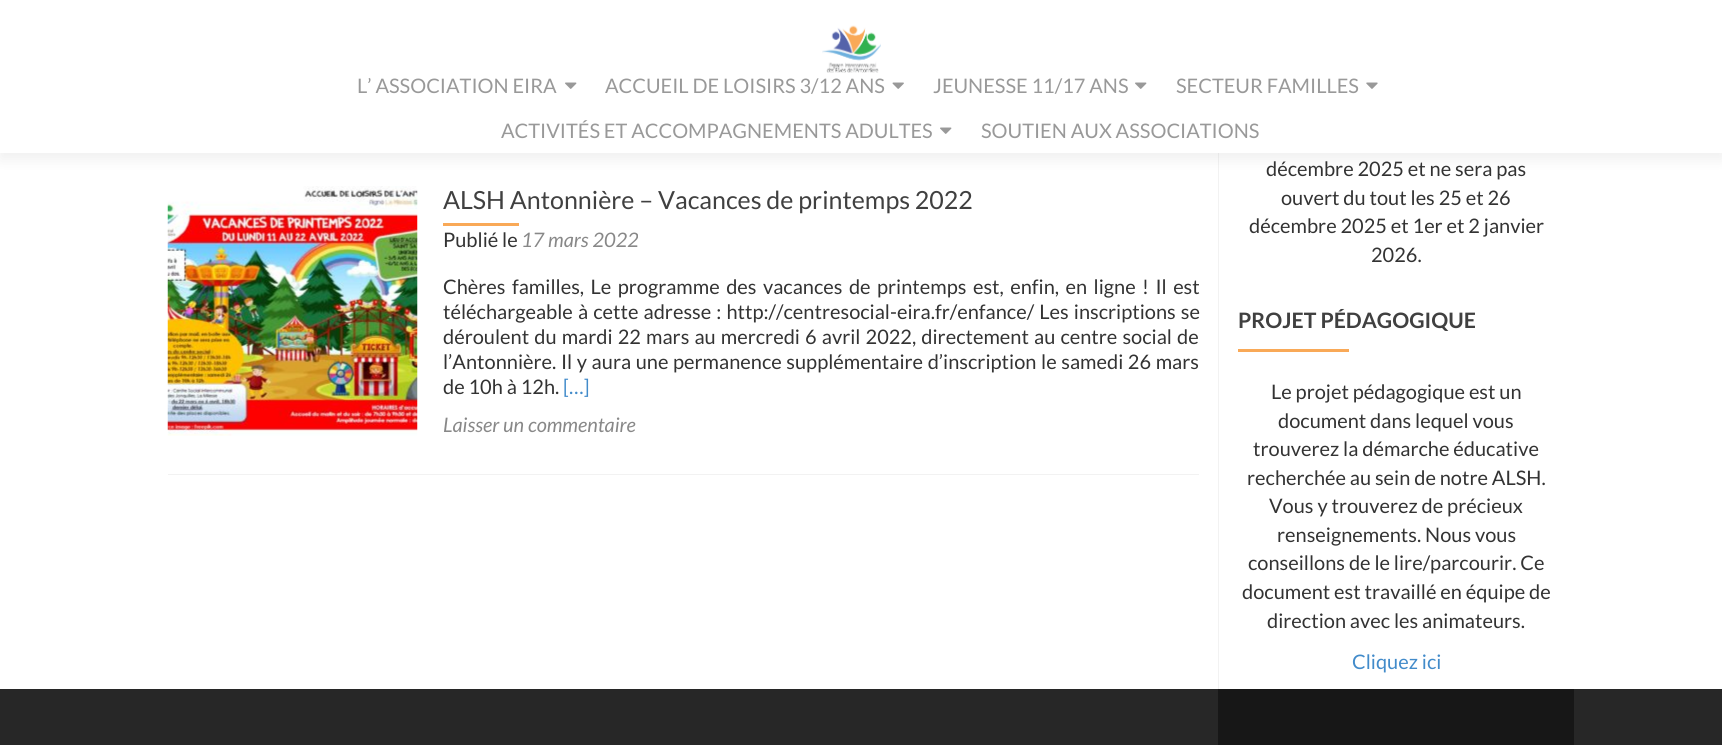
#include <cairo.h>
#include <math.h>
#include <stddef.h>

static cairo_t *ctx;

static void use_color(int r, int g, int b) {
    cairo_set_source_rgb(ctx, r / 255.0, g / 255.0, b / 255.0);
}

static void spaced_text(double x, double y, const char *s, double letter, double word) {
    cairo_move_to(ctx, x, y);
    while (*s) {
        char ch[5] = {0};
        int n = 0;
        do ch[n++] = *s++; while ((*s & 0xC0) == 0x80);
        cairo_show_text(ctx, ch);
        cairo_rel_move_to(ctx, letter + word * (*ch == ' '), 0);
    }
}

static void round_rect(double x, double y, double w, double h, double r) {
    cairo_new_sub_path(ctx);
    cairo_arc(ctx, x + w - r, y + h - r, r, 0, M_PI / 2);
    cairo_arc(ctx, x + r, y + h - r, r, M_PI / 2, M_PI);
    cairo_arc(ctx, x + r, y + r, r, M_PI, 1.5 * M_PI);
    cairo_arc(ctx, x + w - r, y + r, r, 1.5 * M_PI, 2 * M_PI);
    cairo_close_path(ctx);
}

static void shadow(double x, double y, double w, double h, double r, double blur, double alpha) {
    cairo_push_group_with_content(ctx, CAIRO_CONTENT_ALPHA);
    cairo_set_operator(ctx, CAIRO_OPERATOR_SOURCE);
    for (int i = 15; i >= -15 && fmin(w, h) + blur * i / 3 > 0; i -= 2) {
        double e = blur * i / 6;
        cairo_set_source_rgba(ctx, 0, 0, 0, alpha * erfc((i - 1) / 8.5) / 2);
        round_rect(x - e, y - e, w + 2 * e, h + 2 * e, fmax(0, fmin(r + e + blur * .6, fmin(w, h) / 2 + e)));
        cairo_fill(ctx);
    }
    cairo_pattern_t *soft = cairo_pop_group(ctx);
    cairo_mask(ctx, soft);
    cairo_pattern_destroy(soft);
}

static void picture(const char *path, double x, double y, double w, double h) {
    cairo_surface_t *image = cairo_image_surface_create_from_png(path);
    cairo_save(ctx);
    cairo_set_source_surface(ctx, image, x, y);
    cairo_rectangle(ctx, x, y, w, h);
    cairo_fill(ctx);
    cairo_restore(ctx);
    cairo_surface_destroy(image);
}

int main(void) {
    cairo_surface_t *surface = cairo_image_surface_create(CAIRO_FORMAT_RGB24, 1722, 745);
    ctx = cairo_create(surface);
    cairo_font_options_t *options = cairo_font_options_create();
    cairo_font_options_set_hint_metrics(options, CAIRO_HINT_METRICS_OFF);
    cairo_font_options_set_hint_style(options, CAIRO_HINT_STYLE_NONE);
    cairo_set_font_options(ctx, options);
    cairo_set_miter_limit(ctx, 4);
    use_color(255, 255, 255);
    cairo_paint(ctx);
    use_color(242, 242, 242);
    cairo_rectangle(ctx, 1218, 153, 1, 536);
    cairo_fill(ctx);
    use_color(50, 50, 50);
    shadow(0, 6, 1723, 153, 0, 7, 0.08);
    use_color(255, 255, 255);
    cairo_rectangle(ctx, 0, 0, 1722, 153);
    cairo_fill(ctx);
    picture("img1.png", 822, 25, 59, 48);
    cairo_select_font_face(ctx, "Lato", CAIRO_FONT_SLANT_NORMAL, CAIRO_FONT_WEIGHT_NORMAL);
    cairo_set_font_size(ctx, 20);
    use_color(153, 153, 153);
    cairo_move_to(ctx, 357, 93);
    cairo_show_text(ctx, "L’ ASSOCIATION EIRA");
    picture("img2.png", 565, 82, 12, 7);
    cairo_move_to(ctx, 605, 93);
    cairo_show_text(ctx, "ACCUEIL DE LOISIRS 3/12 ANS");
    picture("img3.png", 892, 82, 12, 7);
    cairo_move_to(ctx, 933, 93);
    cairo_show_text(ctx, "JEUNESSE 11/17 ANS");
    picture("img2.png", 1135, 82, 12, 7);
    cairo_move_to(ctx, 1176, 93);
    cairo_show_text(ctx, "SECTEUR FAMILLES");
    picture("img4.png", 1366, 82, 12, 7);
    cairo_move_to(ctx, 501, 138);
    cairo_show_text(ctx, "ACTIVITÉS ET ACCOMPAGNEMENTS ADULTES");
    picture("img2.png", 940, 127, 12, 7);
    cairo_move_to(ctx, 981, 138);
    cairo_show_text(ctx, "SOUTIEN AUX ASSOCIATIONS");
    use_color(242, 242, 242);
    cairo_rectangle(ctx, 168, 474, 1031, 1);
    cairo_fill(ctx);
    picture("img5.png", 167, 186, 251, 250);
    cairo_set_font_size(ctx, 25);
    use_color(64, 64, 64);
    cairo_move_to(ctx, 443, 209);
    cairo_show_text(ctx, "ALSH Antonnière – Vacances de printemps 2022");
    use_color(249, 169, 87);
    cairo_rectangle(ctx, 443, 223, 76, 3);
    cairo_fill(ctx);
    cairo_set_font_size(ctx, 20);
    use_color(51, 51, 51);
    cairo_move_to(ctx, 443, 247);
    cairo_show_text(ctx, "Publié le");
    cairo_select_font_face(ctx, "Lato", CAIRO_FONT_SLANT_ITALIC, CAIRO_FONT_WEIGHT_NORMAL);
    use_color(136, 136, 136);
    cairo_move_to(ctx, 521, 247);
    cairo_show_text(ctx, "17 mars 2022");
    cairo_select_font_face(ctx, "Lato", CAIRO_FONT_SLANT_NORMAL, CAIRO_FONT_WEIGHT_NORMAL);
    use_color(51, 51, 51);
    spaced_text(443, 294, "Chères familles, Le programme des vacances de printemps est, enfin, en ligne ! Il est", 0, 2.6);
    spaced_text(443, 319, "téléchargeable à cette adresse : http://centresocial-eira.fr/enfance/ Les inscriptions se", 0, 1.25);
    spaced_text(443, 344, "déroulent du mardi 22 mars au mercredi 6 avril 2022, directement au centre social de", 0, 1.25);
    spaced_text(443, 369, "l’Antonnière. Il y aura une permanence supplémentaire d’inscription le samedi 26 mars", 0, 0.75);
    cairo_move_to(ctx, 443, 394);
    cairo_show_text(ctx, "de 10h à 12h.");
    use_color(66, 139, 202);
    cairo_move_to(ctx, 563, 394);
    cairo_show_text(ctx, "[…]");
    cairo_select_font_face(ctx, "Lato", CAIRO_FONT_SLANT_ITALIC, CAIRO_FONT_WEIGHT_NORMAL);
    use_color(136, 136, 136);
    cairo_move_to(ctx, 443, 432);
    cairo_show_text(ctx, "Laisser un commentaire");
    cairo_select_font_face(ctx, "Lato", CAIRO_FONT_SLANT_NORMAL, CAIRO_FONT_WEIGHT_NORMAL);
    use_color(51, 51, 51);
    cairo_move_to(ctx, 1266, 176);
    cairo_show_text(ctx, "décembre 2025 et ne sera pas");
    cairo_move_to(ctx, 1281, 205);
    cairo_show_text(ctx, "ouvert du tout les 25 et 26");
    cairo_move_to(ctx, 1249, 233);
    cairo_show_text(ctx, "décembre 2025 et 1er et 2 janvier");
    cairo_move_to(ctx, 1371, 262);
    cairo_show_text(ctx, "2026.");
    cairo_select_font_face(ctx, "Lato", CAIRO_FONT_SLANT_NORMAL, CAIRO_FONT_WEIGHT_BOLD);
    cairo_set_font_size(ctx, 21.25);
    use_color(64, 64, 64);
    cairo_move_to(ctx, 1238, 328);
    cairo_show_text(ctx, "PROJET PÉDAGOGIQUE");
    use_color(249, 169, 87);
    cairo_rectangle(ctx, 1238, 349, 111, 3);
    cairo_fill(ctx);
    cairo_select_font_face(ctx, "Lato", CAIRO_FONT_SLANT_NORMAL, CAIRO_FONT_WEIGHT_NORMAL);
    cairo_set_font_size(ctx, 20);
    use_color(51, 51, 51);
    cairo_move_to(ctx, 1271, 399);
    cairo_show_text(ctx, "Le projet pédagogique est un");
    cairo_move_to(ctx, 1278, 428);
    cairo_show_text(ctx, "document dans lequel vous");
    cairo_move_to(ctx, 1253, 456);
    cairo_show_text(ctx, "trouverez la démarche éducative");
    cairo_move_to(ctx, 1247, 485);
    cairo_show_text(ctx, "recherchée au sein de notre ALSH.");
    cairo_move_to(ctx, 1269, 513);
    cairo_show_text(ctx, "Vous y trouverez de précieux");
    cairo_move_to(ctx, 1277, 542);
    cairo_show_text(ctx, "renseignements. Nous vous");
    cairo_move_to(ctx, 1248, 570);
    cairo_show_text(ctx, "conseillons de le lire/parcourir. Ce");
    cairo_move_to(ctx, 1242, 599);
    cairo_show_text(ctx, "document est travaillé en équipe de");
    cairo_move_to(ctx, 1267, 628);
    cairo_show_text(ctx, "direction avec les animateurs.");
    use_color(66, 139, 202);
    cairo_move_to(ctx, 1352, 669);
    cairo_show_text(ctx, "Cliquez ici");
    use_color(39, 39, 39);
    cairo_rectangle(ctx, 0, 689, 1722, 56);
    cairo_fill(ctx);
    use_color(23, 23, 23);
    cairo_rectangle(ctx, 1218, 689, 356, 56);
    cairo_fill(ctx);
    cairo_surface_write_to_png(surface, "result.png");
    cairo_font_options_destroy(options);
    cairo_destroy(ctx);
    cairo_surface_destroy(surface);
    return 0;
}
